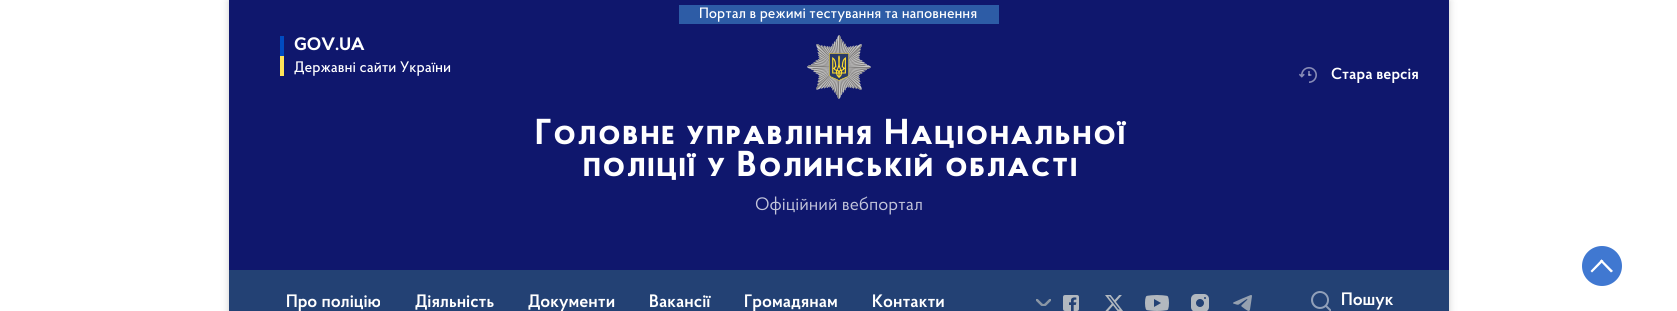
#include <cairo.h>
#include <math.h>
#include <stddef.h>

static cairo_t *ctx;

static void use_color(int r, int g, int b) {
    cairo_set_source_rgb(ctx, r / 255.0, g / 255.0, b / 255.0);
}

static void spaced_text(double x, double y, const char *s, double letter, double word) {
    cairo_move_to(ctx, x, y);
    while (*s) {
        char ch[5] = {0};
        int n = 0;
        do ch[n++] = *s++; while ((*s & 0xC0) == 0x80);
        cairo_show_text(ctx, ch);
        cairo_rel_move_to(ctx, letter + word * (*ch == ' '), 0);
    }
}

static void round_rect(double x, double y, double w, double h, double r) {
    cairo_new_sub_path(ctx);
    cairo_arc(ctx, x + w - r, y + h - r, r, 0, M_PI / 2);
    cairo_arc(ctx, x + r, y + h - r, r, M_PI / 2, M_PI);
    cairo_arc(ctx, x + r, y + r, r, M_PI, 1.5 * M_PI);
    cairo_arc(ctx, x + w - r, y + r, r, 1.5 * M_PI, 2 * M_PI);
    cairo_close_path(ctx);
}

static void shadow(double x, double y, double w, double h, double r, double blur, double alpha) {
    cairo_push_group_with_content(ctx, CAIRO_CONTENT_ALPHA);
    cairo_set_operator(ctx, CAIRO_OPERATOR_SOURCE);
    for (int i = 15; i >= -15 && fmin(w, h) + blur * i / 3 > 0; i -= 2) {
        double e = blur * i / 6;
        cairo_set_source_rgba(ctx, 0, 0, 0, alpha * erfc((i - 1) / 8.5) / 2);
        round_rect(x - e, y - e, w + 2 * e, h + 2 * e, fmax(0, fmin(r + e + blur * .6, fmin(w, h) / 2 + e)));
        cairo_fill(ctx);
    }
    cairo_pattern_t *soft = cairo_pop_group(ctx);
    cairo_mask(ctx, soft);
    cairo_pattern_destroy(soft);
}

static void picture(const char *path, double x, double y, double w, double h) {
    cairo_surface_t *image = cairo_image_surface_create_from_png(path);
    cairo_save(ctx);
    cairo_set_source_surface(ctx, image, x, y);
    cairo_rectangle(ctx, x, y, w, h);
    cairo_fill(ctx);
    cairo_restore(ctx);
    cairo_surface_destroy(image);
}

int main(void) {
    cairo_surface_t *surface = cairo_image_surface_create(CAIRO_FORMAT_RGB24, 1677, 311);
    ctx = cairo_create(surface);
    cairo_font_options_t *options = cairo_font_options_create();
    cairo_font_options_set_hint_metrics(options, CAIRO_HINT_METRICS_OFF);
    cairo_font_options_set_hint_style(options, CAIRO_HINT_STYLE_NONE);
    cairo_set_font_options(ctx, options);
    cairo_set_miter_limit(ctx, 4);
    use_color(255, 255, 255);
    cairo_paint(ctx);
    use_color(0, 0, 0);
    shadow(229, 1, 1220, 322, 0, 4, 0.2);
    use_color(15, 23, 109);
    cairo_rectangle(ctx, 229, 0, 1220, 270);
    cairo_fill(ctx);
    use_color(45, 92, 166);
    cairo_rectangle(ctx, 679, 5, 320, 19);
    cairo_fill(ctx);
    cairo_select_font_face(ctx, "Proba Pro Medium", CAIRO_FONT_SLANT_NORMAL, CAIRO_FONT_WEIGHT_NORMAL);
    cairo_set_font_size(ctx, 15);
    use_color(255, 255, 255);
    cairo_move_to(ctx, 699, 18);
    cairo_show_text(ctx, "Портал в режимі тестування та наповнення");
    use_color(0, 75, 193);
    cairo_rectangle(ctx, 280, 36, 4, 20);
    cairo_fill(ctx);
    use_color(255, 227, 88);
    cairo_rectangle(ctx, 280, 56, 4, 20);
    cairo_fill(ctx);
    cairo_select_font_face(ctx, "Proba Pro", CAIRO_FONT_SLANT_NORMAL, CAIRO_FONT_WEIGHT_BOLD);
    cairo_set_font_size(ctx, 18);
    use_color(255, 255, 255);
    cairo_move_to(ctx, 294, 50);
    cairo_show_text(ctx, "GOV.UA");
    cairo_select_font_face(ctx, "Proba Pro Medium", CAIRO_FONT_SLANT_NORMAL, CAIRO_FONT_WEIGHT_NORMAL);
    cairo_set_font_size(ctx, 15.25);
    cairo_move_to(ctx, 294, 72);
    cairo_show_text(ctx, "Державні сайти України");
    picture("img1.png", 1299, 67, 18, 16);
    cairo_select_font_face(ctx, "Proba Pro SemiBold", CAIRO_FONT_SLANT_NORMAL, CAIRO_FONT_WEIGHT_NORMAL);
    cairo_set_font_size(ctx, 16);
    cairo_move_to(ctx, 1331, 79);
    cairo_show_text(ctx, "Стара версія");
    picture("img2.png", 807, 35, 64, 64);
    cairo_select_font_face(ctx, "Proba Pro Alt", CAIRO_FONT_SLANT_NORMAL, CAIRO_FONT_WEIGHT_BOLD);
    cairo_set_font_size(ctx, 36);
    spaced_text(535, 144, "Головне управління Національної", 2, 0);
    spaced_text(583, 176, "поліції у Волинській області", 2, 0);
    cairo_select_font_face(ctx, "Proba Pro", CAIRO_FONT_SLANT_NORMAL, CAIRO_FONT_WEIGHT_NORMAL);
    cairo_set_font_size(ctx, 18);
    use_color(195, 197, 219);
    cairo_move_to(ctx, 755, 210);
    cairo_show_text(ctx, "Офіційний вебпортал");
    use_color(35, 65, 116);
    cairo_rectangle(ctx, 229, 270, 1220, 41);
    cairo_fill(ctx);
    cairo_select_font_face(ctx, "Proba Pro SemiBold", CAIRO_FONT_SLANT_NORMAL, CAIRO_FONT_WEIGHT_NORMAL);
    use_color(255, 255, 255);
    cairo_move_to(ctx, 286, 307);
    cairo_show_text(ctx, "Про поліцію");
    cairo_move_to(ctx, 415, 307);
    cairo_show_text(ctx, "Діяльність");
    cairo_move_to(ctx, 528, 307);
    cairo_show_text(ctx, "Документи");
    cairo_move_to(ctx, 649, 307);
    cairo_show_text(ctx, "Вакансії");
    cairo_move_to(ctx, 744, 307);
    cairo_show_text(ctx, "Громадянам");
    cairo_move_to(ctx, 872, 307);
    cairo_show_text(ctx, "Контакти");
    picture("img3.png", 1036, 299, 15, 7);
    picture("img4.png", 1063, 295, 16, 16);
    picture("img5.png", 1105, 295, 18, 16);
    picture("img6.png", 1145, 295, 24, 16);
    picture("img7.png", 1191, 294, 18, 17);
    picture("img8.png", 1233, 295, 19, 16);
    picture("img9.png", 1311, 291, 20, 20);
    cairo_move_to(ctx, 1341, 305);
    cairo_show_text(ctx, "Пошук");
    use_color(64, 120, 209);
    cairo_new_path(ctx);
    cairo_arc(ctx, 1602, 266, 20, 0, 2 * M_PI);
    cairo_fill(ctx);
    use_color(255, 255, 255);
    cairo_new_path(ctx);
    cairo_move_to(ctx, 1600, 261);
    cairo_line_to(ctx, 1601.5, 259.5);
    cairo_line_to(ctx, 1613, 271);
    cairo_line_to(ctx, 1611, 272.5);
    cairo_close_path(ctx);
    cairo_fill(ctx);
    cairo_new_path(ctx);
    cairo_move_to(ctx, 1601.5, 259.5);
    cairo_line_to(ctx, 1603.5, 261);
    cairo_line_to(ctx, 1592, 272.5);
    cairo_line_to(ctx, 1590.5, 271);
    cairo_close_path(ctx);
    cairo_fill(ctx);
    cairo_surface_write_to_png(surface, "result.png");
    cairo_font_options_destroy(options);
    cairo_destroy(ctx);
    cairo_surface_destroy(surface);
    return 0;
}
